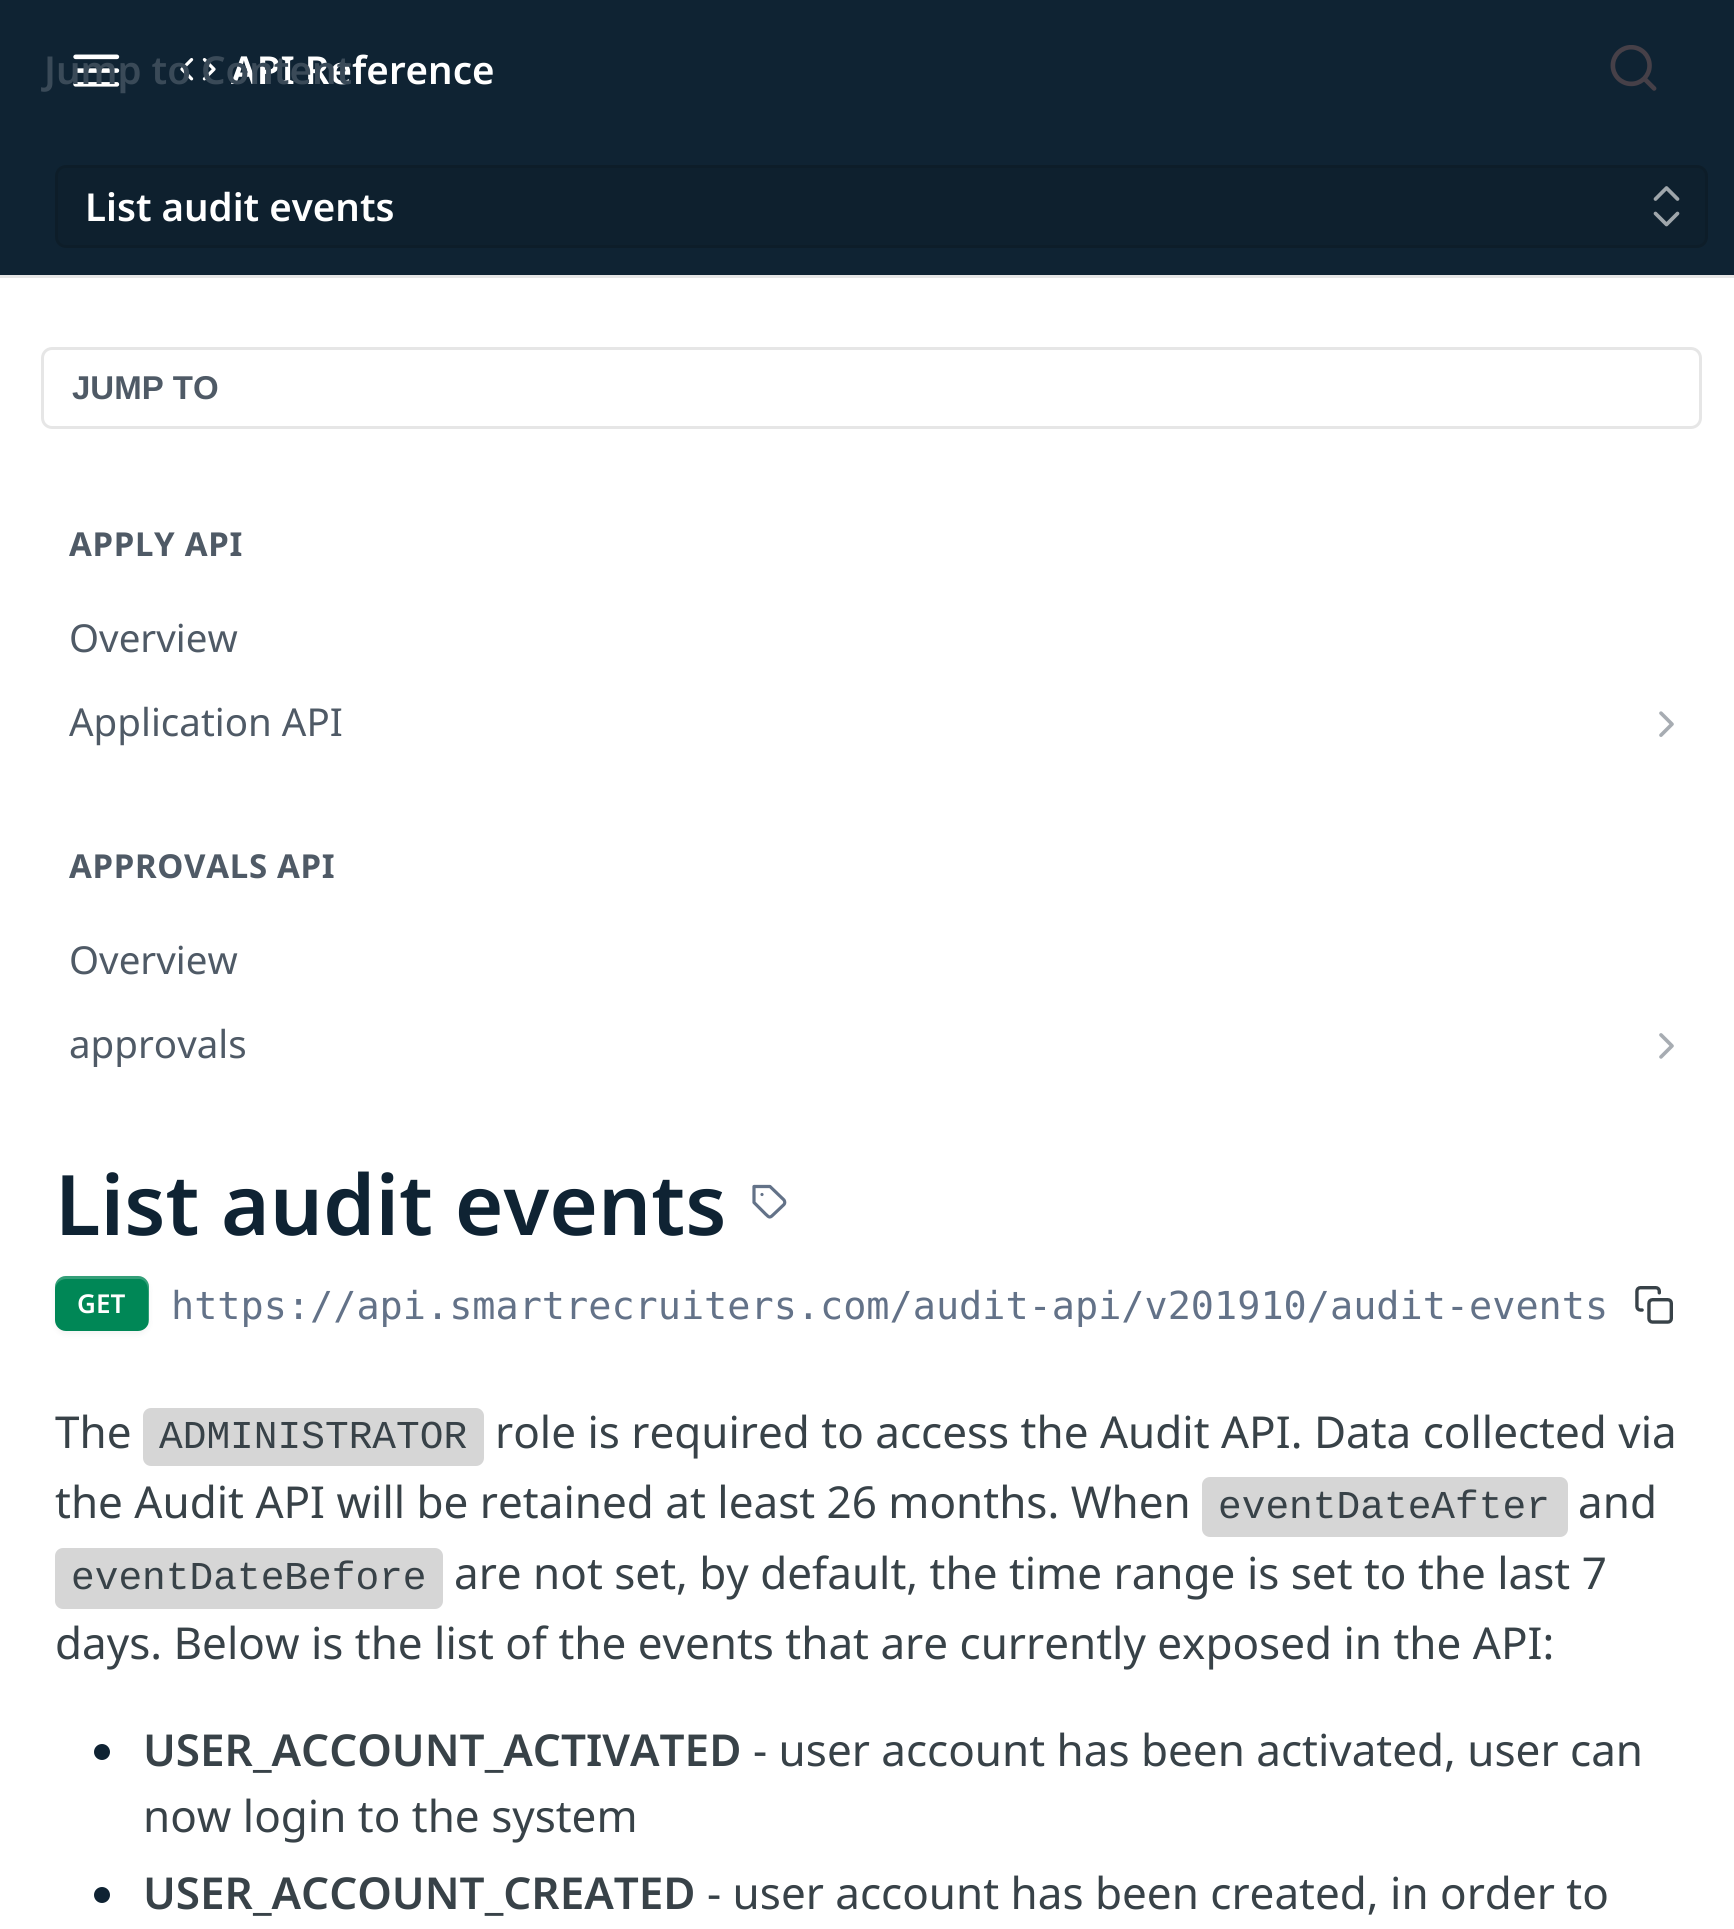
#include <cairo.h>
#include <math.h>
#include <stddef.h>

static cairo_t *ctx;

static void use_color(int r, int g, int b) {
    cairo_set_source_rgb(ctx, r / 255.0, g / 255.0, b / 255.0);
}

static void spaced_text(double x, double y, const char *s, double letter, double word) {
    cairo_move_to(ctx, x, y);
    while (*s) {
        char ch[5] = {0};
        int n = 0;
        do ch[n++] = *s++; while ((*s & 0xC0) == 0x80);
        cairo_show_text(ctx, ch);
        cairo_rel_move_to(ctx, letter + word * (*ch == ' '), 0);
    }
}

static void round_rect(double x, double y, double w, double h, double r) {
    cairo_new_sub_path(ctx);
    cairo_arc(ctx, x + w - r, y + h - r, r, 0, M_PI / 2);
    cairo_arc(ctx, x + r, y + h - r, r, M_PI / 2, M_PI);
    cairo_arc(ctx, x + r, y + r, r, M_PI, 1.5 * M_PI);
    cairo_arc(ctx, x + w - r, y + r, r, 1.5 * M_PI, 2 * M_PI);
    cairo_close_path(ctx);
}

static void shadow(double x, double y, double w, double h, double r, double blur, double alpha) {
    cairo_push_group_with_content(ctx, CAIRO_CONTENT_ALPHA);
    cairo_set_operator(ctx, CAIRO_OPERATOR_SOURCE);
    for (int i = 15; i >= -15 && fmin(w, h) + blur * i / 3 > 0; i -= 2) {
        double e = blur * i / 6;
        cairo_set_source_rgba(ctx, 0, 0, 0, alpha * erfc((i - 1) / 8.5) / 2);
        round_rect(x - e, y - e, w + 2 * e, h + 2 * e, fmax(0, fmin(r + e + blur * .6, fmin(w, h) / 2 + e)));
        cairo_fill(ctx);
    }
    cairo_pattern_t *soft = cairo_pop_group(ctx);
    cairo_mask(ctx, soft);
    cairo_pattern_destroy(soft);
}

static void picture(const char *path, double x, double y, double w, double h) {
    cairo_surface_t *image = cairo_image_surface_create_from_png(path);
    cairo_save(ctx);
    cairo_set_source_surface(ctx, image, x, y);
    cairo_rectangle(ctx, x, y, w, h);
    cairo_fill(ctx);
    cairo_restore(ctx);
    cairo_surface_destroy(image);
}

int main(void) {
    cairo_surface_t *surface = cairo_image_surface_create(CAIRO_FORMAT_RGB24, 1734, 1929);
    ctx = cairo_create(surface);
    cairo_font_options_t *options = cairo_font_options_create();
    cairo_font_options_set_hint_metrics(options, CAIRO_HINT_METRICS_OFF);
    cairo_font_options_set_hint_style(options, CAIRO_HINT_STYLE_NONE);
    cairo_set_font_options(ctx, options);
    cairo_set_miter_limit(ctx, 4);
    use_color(255, 255, 255);
    cairo_paint(ctx);
    use_color(230, 230, 230);
    cairo_rectangle(ctx, 0, 275, 1734, 3);
    cairo_fill(ctx);
    use_color(15, 35, 51);
    cairo_rectangle(ctx, 0, 0, 1734, 275);
    cairo_fill(ctx);
    picture("img1.png", 73, 54, 47, 33);
    picture("img2.png", 180, 58, 36, 23);
    cairo_select_font_face(ctx, "Noto Sans SemiBold", CAIRO_FONT_SLANT_NORMAL, CAIRO_FONT_WEIGHT_NORMAL);
    cairo_set_font_size(ctx, 38.5);
    use_color(255, 255, 255);
    cairo_move_to(ctx, 231, 84);
    cairo_show_text(ctx, "API Reference");
    use_color(58, 74, 88);
    cairo_move_to(ctx, 44, 84);
    cairo_show_text(ctx, "Jump to Content");
    picture("img3.png", 1610, 45, 47, 46);
    use_color(14, 32, 46);
    round_rect(56.5, 166.5, 1650, 80, 9.5);
    cairo_fill_preserve(ctx);
    use_color(13, 29, 41);
    cairo_set_line_width(ctx, 3);
    cairo_stroke(ctx);
    use_color(255, 255, 255);
    cairo_move_to(ctx, 85, 221);
    cairo_show_text(ctx, "List audit events");
    cairo_new_path(ctx);
    cairo_move_to(ctx, 1655.5, 213.5);
    cairo_line_to(ctx, 1666.5, 224.5);
    cairo_line_to(ctx, 1677.5, 213.5);
    cairo_move_to(ctx, 1677.5, 199);
    cairo_line_to(ctx, 1666.5, 188);
    cairo_line_to(ctx, 1655.5, 199);
    use_color(159, 166, 171);
    cairo_set_line_width(ctx, 3.7);
    cairo_set_line_cap(ctx, CAIRO_LINE_CAP_ROUND);
    cairo_set_line_join(ctx, CAIRO_LINE_JOIN_ROUND);
    cairo_stroke(ctx);
    round_rect(42.5, 348.5, 1658, 79, 9.5);
    use_color(230, 230, 230);
    cairo_set_line_width(ctx, 3);
    cairo_set_line_cap(ctx, CAIRO_LINE_CAP_BUTT);
    cairo_set_line_join(ctx, CAIRO_LINE_JOIN_MITER);
    cairo_stroke(ctx);
    cairo_select_font_face(ctx, "Liberation Sans", CAIRO_FONT_SLANT_NORMAL, CAIRO_FONT_WEIGHT_BOLD);
    cairo_set_font_size(ctx, 33);
    use_color(79, 90, 102);
    cairo_move_to(ctx, 72, 399);
    cairo_show_text(ctx, "JUMP TO");
    cairo_select_font_face(ctx, "Noto Sans", CAIRO_FONT_SLANT_NORMAL, CAIRO_FONT_WEIGHT_BOLD);
    spaced_text(69, 556, "APPLY API", 0.7, 0);
    cairo_select_font_face(ctx, "Noto Sans", CAIRO_FONT_SLANT_NORMAL, CAIRO_FONT_WEIGHT_NORMAL);
    cairo_set_font_size(ctx, 38.5);
    cairo_move_to(ctx, 69, 652);
    cairo_show_text(ctx, "Overview");
    cairo_move_to(ctx, 69, 736);
    cairo_show_text(ctx, "Application API");
    picture("img4.png", 1659, 711, 15, 26);
    cairo_select_font_face(ctx, "Noto Sans", CAIRO_FONT_SLANT_NORMAL, CAIRO_FONT_WEIGHT_BOLD);
    cairo_set_font_size(ctx, 33);
    spaced_text(69, 878, "APPROVALS API", 0.7, 0);
    cairo_select_font_face(ctx, "Noto Sans", CAIRO_FONT_SLANT_NORMAL, CAIRO_FONT_WEIGHT_NORMAL);
    cairo_set_font_size(ctx, 38.5);
    cairo_move_to(ctx, 69, 974);
    cairo_show_text(ctx, "Overview");
    cairo_save(ctx);
    cairo_rectangle(ctx, 0, 275, 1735, 792);
    cairo_clip(ctx);
    cairo_move_to(ctx, 69, 1058);
    cairo_show_text(ctx, "approvals");
    cairo_restore(ctx);
    picture("img5.png", 1659, 1033, 15, 26);
    cairo_select_font_face(ctx, "Noto Sans SemiBold", CAIRO_FONT_SLANT_NORMAL, CAIRO_FONT_WEIGHT_NORMAL);
    cairo_set_font_size(ctx, 83.5);
    use_color(15, 35, 51);
    cairo_move_to(ctx, 55, 1235);
    cairo_show_text(ctx, "List audit events");
    cairo_new_path(ctx);
    cairo_move_to(ctx, 762, 1194.5);
    cairo_line_to(ctx, 762, 1194.5);
    cairo_move_to(ctx, 784, 1204.5);
    cairo_line_to(ctx, 774, 1214);
    cairo_curve_to(ctx, 770, 1218, 769.5, 1218, 765.5, 1214);
    cairo_line_to(ctx, 754, 1202.5);
    cairo_line_to(ctx, 754, 1186.5);
    cairo_line_to(ctx, 770, 1186.5);
    cairo_line_to(ctx, 784, 1200);
    cairo_curve_to(ctx, 785, 1201.5, 785, 1203.5, 784, 1204.5);
    cairo_close_path(ctx);
    use_color(99, 114, 136);
    cairo_set_line_width(ctx, 3.2);
    cairo_set_line_cap(ctx, CAIRO_LINE_CAP_ROUND);
    cairo_set_line_join(ctx, CAIRO_LINE_JOIN_ROUND);
    cairo_stroke(ctx);
    use_color(0, 0, 0);
    shadow(55, 1279, 94, 55, 11, 3, 0.05);
    use_color(0, 135, 86);
    round_rect(55, 1276, 94, 55, 11);
    cairo_fill(ctx);
    cairo_set_source_rgba(ctx, 1, 1, 1, 0.2);
    cairo_new_path(ctx);
    cairo_move_to(ctx, 66, 1279);
    cairo_line_to(ctx, 140, 1279);
    cairo_curve_to(ctx, 150, 1281, 148, 1294, 148, 1301);
    cairo_line_to(ctx, 148, 1325);
    cairo_curve_to(ctx, 149, 1323, 149, 1322, 149, 1320);
    cairo_line_to(ctx, 149, 1287);
    cairo_curve_to(ctx, 149, 1281, 144, 1276, 138, 1276);
    cairo_line_to(ctx, 66, 1276);
    cairo_curve_to(ctx, 60, 1276, 55, 1281, 55, 1287);
    cairo_line_to(ctx, 55, 1290);
    cairo_curve_to(ctx, 55, 1284, 60, 1279, 66, 1279);
    cairo_close_path(ctx);
    cairo_fill(ctx);
    cairo_set_font_size(ctx, 26);
    use_color(255, 255, 255);
    cairo_move_to(ctx, 77, 1313);
    cairo_show_text(ctx, "GET");
    cairo_select_font_face(ctx, "DejaVu Sans Mono", CAIRO_FONT_SLANT_NORMAL, CAIRO_FONT_WEIGHT_NORMAL);
    cairo_set_font_size(ctx, 38.5);
    use_color(99, 114, 136);
    cairo_move_to(ctx, 171, 1319);
    cairo_show_text(ctx, "https://api.smartrecruiters.com/audit-api/v201910/audit-events");
    picture("img6.png", 1635, 1286, 38, 38);
    cairo_select_font_face(ctx, "Noto Sans", CAIRO_FONT_SLANT_NORMAL, CAIRO_FONT_WEIGHT_NORMAL);
    cairo_set_font_size(ctx, 44);
    use_color(56, 66, 72);
    cairo_move_to(ctx, 55, 1448);
    cairo_show_text(ctx, "The");
    use_color(214, 214, 214);
    round_rect(143, 1408, 341, 58, 8);
    cairo_fill(ctx);
    cairo_select_font_face(ctx, "Liberation Mono", CAIRO_FONT_SLANT_NORMAL, CAIRO_FONT_WEIGHT_NORMAL);
    cairo_set_font_size(ctx, 39.5);
    use_color(56, 66, 72);
    cairo_move_to(ctx, 159, 1448);
    cairo_show_text(ctx, "ADMINISTRATOR");
    cairo_select_font_face(ctx, "Noto Sans", CAIRO_FONT_SLANT_NORMAL, CAIRO_FONT_WEIGHT_NORMAL);
    cairo_set_font_size(ctx, 44);
    cairo_move_to(ctx, 495, 1448);
    cairo_show_text(ctx, "role is required to access the Audit API. Data collected via");
    cairo_move_to(ctx, 55, 1518);
    cairo_show_text(ctx, "the Audit API will be retained at least 26 months. When");
    use_color(214, 214, 214);
    round_rect(1202, 1477, 366, 60, 8);
    cairo_fill(ctx);
    cairo_select_font_face(ctx, "Liberation Mono", CAIRO_FONT_SLANT_NORMAL, CAIRO_FONT_WEIGHT_NORMAL);
    cairo_set_font_size(ctx, 39.5);
    use_color(56, 66, 72);
    cairo_move_to(ctx, 1218, 1518);
    cairo_show_text(ctx, "eventDateAfter");
    cairo_select_font_face(ctx, "Noto Sans", CAIRO_FONT_SLANT_NORMAL, CAIRO_FONT_WEIGHT_NORMAL);
    cairo_set_font_size(ctx, 44);
    cairo_move_to(ctx, 1578, 1518);
    cairo_show_text(ctx, "and");
    use_color(214, 214, 214);
    round_rect(55, 1548, 388, 61, 8);
    cairo_fill(ctx);
    cairo_select_font_face(ctx, "Liberation Mono", CAIRO_FONT_SLANT_NORMAL, CAIRO_FONT_WEIGHT_NORMAL);
    cairo_set_font_size(ctx, 39.5);
    use_color(56, 66, 72);
    cairo_move_to(ctx, 71, 1589);
    cairo_show_text(ctx, "eventDateBefore");
    cairo_select_font_face(ctx, "Noto Sans", CAIRO_FONT_SLANT_NORMAL, CAIRO_FONT_WEIGHT_NORMAL);
    cairo_set_font_size(ctx, 44);
    cairo_move_to(ctx, 454, 1589);
    cairo_show_text(ctx, "are not set, by default, the time range is set to the last 7");
    cairo_move_to(ctx, 55, 1659);
    cairo_show_text(ctx, "days. Below is the list of the events that are currently exposed in the API:");
    use_color(15, 35, 51);
    cairo_new_path(ctx);
    cairo_arc(ctx, 102, 1752, 8, 0, 2 * M_PI);
    cairo_fill(ctx);
    cairo_select_font_face(ctx, "Noto Sans SemiBold", CAIRO_FONT_SLANT_NORMAL, CAIRO_FONT_WEIGHT_NORMAL);
    use_color(56, 66, 72);
    cairo_move_to(ctx, 143, 1766);
    cairo_show_text(ctx, "USER_ACCOUNT_ACTIVATED");
    cairo_select_font_face(ctx, "Noto Sans", CAIRO_FONT_SLANT_NORMAL, CAIRO_FONT_WEIGHT_NORMAL);
    cairo_move_to(ctx, 753, 1766);
    cairo_show_text(ctx, "- user account has been activated, user can");
    cairo_move_to(ctx, 143, 1832);
    cairo_show_text(ctx, "now login to the system");
    use_color(15, 35, 51);
    cairo_new_path(ctx);
    cairo_arc(ctx, 102, 1895, 8, 0, 2 * M_PI);
    cairo_fill(ctx);
    cairo_select_font_face(ctx, "Noto Sans SemiBold", CAIRO_FONT_SLANT_NORMAL, CAIRO_FONT_WEIGHT_NORMAL);
    use_color(56, 66, 72);
    cairo_move_to(ctx, 143, 1909);
    cairo_show_text(ctx, "USER_ACCOUNT_CREATED");
    cairo_select_font_face(ctx, "Noto Sans", CAIRO_FONT_SLANT_NORMAL, CAIRO_FONT_WEIGHT_NORMAL);
    cairo_move_to(ctx, 707, 1909);
    cairo_show_text(ctx, "- user account has been created, in order to");
    cairo_surface_write_to_png(surface, "result.png");
    cairo_font_options_destroy(options);
    cairo_destroy(ctx);
    cairo_surface_destroy(surface);
    return 0;
}
